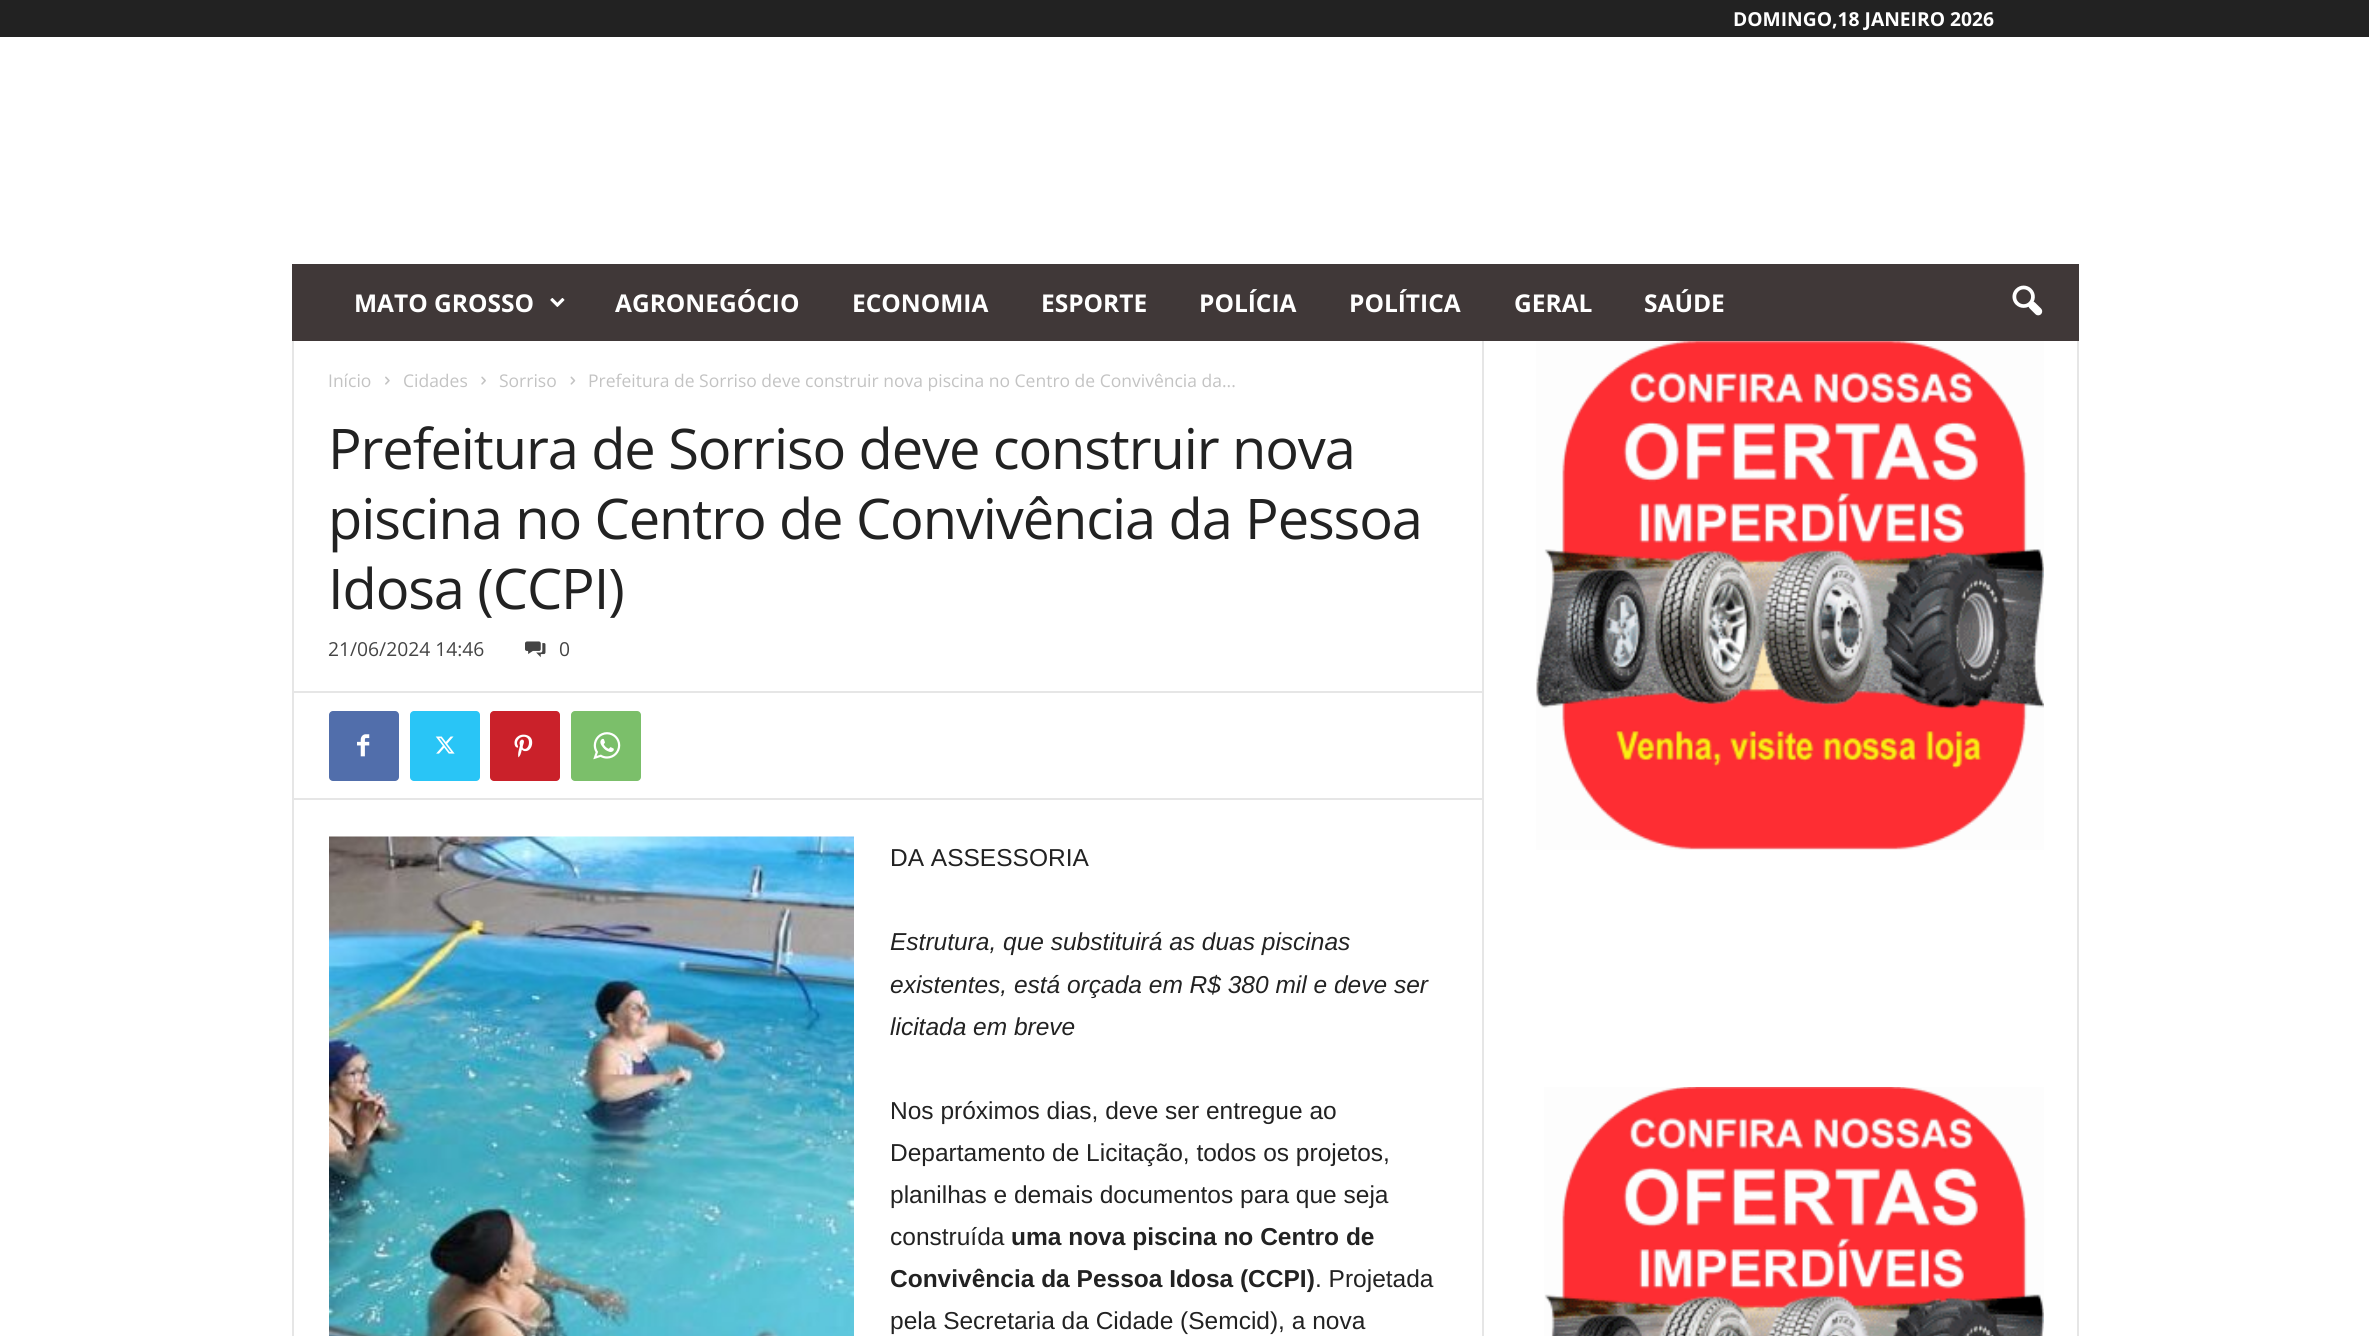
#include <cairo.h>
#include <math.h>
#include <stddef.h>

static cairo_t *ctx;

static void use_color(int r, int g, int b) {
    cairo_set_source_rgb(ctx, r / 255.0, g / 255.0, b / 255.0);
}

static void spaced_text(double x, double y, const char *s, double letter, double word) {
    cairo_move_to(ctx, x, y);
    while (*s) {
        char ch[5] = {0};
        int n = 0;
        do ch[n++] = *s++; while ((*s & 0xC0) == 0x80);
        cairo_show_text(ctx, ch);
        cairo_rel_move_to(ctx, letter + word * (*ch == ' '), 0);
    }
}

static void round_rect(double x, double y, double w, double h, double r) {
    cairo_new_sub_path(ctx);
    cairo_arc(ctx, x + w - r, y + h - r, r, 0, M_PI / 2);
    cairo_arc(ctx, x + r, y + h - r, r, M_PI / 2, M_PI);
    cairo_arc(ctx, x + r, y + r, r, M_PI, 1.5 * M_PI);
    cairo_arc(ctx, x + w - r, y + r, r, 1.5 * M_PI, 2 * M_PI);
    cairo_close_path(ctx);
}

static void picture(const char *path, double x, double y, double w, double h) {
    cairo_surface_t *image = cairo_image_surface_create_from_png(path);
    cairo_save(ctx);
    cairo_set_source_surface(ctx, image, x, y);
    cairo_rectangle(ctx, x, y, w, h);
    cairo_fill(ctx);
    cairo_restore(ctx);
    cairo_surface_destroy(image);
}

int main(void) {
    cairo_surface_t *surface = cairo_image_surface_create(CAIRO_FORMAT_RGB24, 2369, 1336);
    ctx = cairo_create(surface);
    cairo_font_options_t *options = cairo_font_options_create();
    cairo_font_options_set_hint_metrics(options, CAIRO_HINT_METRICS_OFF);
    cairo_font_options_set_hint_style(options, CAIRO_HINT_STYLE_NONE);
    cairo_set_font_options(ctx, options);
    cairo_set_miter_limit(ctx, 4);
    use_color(255, 255, 255);
    cairo_paint(ctx);
    use_color(34, 34, 34);
    cairo_rectangle(ctx, 0, 0, 2369, 37);
    cairo_fill(ctx);
    cairo_select_font_face(ctx, "Open Sans", CAIRO_FONT_SLANT_NORMAL, CAIRO_FONT_WEIGHT_BOLD);
    cairo_set_font_size(ctx, 19.25);
    use_color(255, 255, 255);
    cairo_move_to(ctx, 1733, 26);
    cairo_show_text(ctx, "DOMINGO,18 JANEIRO 2026");
    use_color(64, 56, 56);
    cairo_rectangle(ctx, 292, 264, 1787, 77);
    cairo_fill(ctx);
    cairo_set_font_size(ctx, 24.5);
    use_color(255, 255, 255);
    cairo_move_to(ctx, 354, 312);
    cairo_show_text(ctx, "MATO GROSSO");
    picture("img1.png", 550, 298, 15, 9);
    cairo_move_to(ctx, 615, 312);
    cairo_show_text(ctx, "AGRONEGÓCIO");
    cairo_move_to(ctx, 852, 312);
    cairo_show_text(ctx, "ECONOMIA");
    cairo_move_to(ctx, 1041, 312);
    cairo_show_text(ctx, "ESPORTE");
    cairo_move_to(ctx, 1199, 312);
    cairo_show_text(ctx, "POLÍCIA");
    cairo_move_to(ctx, 1349, 312);
    cairo_show_text(ctx, "POLÍTICA");
    cairo_move_to(ctx, 1514, 312);
    cairo_show_text(ctx, "GERAL");
    cairo_move_to(ctx, 1644, 312);
    cairo_show_text(ctx, "SAÚDE");
    picture("img2.png", 2012, 285, 31, 31);
    use_color(230, 230, 230);
    cairo_rectangle(ctx, 292, 341, 2, 995);
    cairo_fill(ctx);
    cairo_select_font_face(ctx, "Open Sans", CAIRO_FONT_SLANT_NORMAL, CAIRO_FONT_WEIGHT_NORMAL);
    cairo_set_font_size(ctx, 17.5);
    use_color(195, 195, 195);
    cairo_move_to(ctx, 328, 387);
    cairo_show_text(ctx, "Início");
    picture("img3.png", 385, 376, 5, 9);
    cairo_move_to(ctx, 403, 387);
    cairo_show_text(ctx, "Cidades");
    picture("img4.png", 481, 376, 5, 9);
    cairo_move_to(ctx, 499, 387);
    cairo_show_text(ctx, "Sorriso");
    picture("img5.png", 570, 376, 6, 9);
    cairo_move_to(ctx, 588, 387);
    cairo_show_text(ctx, "Prefeitura de Sorriso deve construir nova piscina no Centro de Convivência da...");
    cairo_set_font_size(ctx, 56);
    use_color(34, 34, 34);
    spaced_text(328, 469, "Prefeitura de Sorriso deve construir nova", -1.1, 0);
    spaced_text(328, 539, "piscina no Centro de Convivência da Pessoa", -1.1, 0);
    spaced_text(328, 609, "Idosa (CCPI)", -1.1, 0);
    cairo_set_font_size(ctx, 19.25);
    use_color(68, 68, 68);
    cairo_move_to(ctx, 328, 656);
    cairo_show_text(ctx, "21/06/2024 14:46");
    picture("img6.png", 525, 641, 21, 17);
    cairo_move_to(ctx, 559, 656);
    cairo_show_text(ctx, "0");
    use_color(230, 230, 230);
    cairo_rectangle(ctx, 294, 691, 1188, 2);
    cairo_fill(ctx);
    use_color(81, 110, 171);
    round_rect(329, 711, 70, 70, 4);
    cairo_fill(ctx);
    picture("img7.png", 357, 734, 13, 23);
    use_color(41, 197, 246);
    round_rect(410, 711, 70, 70, 4);
    cairo_fill(ctx);
    picture("img8.png", 435, 736, 20, 18);
    use_color(202, 33, 42);
    round_rect(490, 711, 70, 70, 4);
    cairo_fill(ctx);
    picture("img9.png", 514, 734, 19, 24);
    use_color(123, 191, 106);
    round_rect(571, 711, 70, 70, 4);
    cairo_fill(ctx);
    picture("img10.png", 593, 732, 28, 28);
    use_color(230, 230, 230);
    cairo_rectangle(ctx, 294, 798, 1188, 2);
    cairo_fill(ctx);
    picture("img11.png", 329, 836, 525, 500);
    cairo_select_font_face(ctx, "Liberation Sans", CAIRO_FONT_SLANT_NORMAL, CAIRO_FONT_WEIGHT_NORMAL);
    cairo_set_font_size(ctx, 24.5);
    use_color(34, 34, 34);
    cairo_move_to(ctx, 890, 866);
    cairo_show_text(ctx, "DA ASSESSORIA");
    cairo_select_font_face(ctx, "Liberation Sans", CAIRO_FONT_SLANT_ITALIC, CAIRO_FONT_WEIGHT_NORMAL);
    cairo_move_to(ctx, 890, 950);
    cairo_show_text(ctx, "Estrutura, que substituirá as duas piscinas");
    cairo_move_to(ctx, 890, 993);
    cairo_show_text(ctx, "existentes, está orçada em R$ 380 mil e deve ser");
    cairo_move_to(ctx, 890, 1035);
    cairo_show_text(ctx, "licitada em breve");
    cairo_select_font_face(ctx, "Liberation Sans", CAIRO_FONT_SLANT_NORMAL, CAIRO_FONT_WEIGHT_NORMAL);
    cairo_move_to(ctx, 890, 1119);
    cairo_show_text(ctx, "Nos próximos dias, deve ser entregue ao");
    cairo_move_to(ctx, 890, 1161);
    cairo_show_text(ctx, "Departamento de Licitação, todos os projetos,");
    cairo_move_to(ctx, 890, 1203);
    cairo_show_text(ctx, "planilhas e demais documentos para que seja");
    cairo_move_to(ctx, 890, 1245);
    cairo_show_text(ctx, "construída");
    cairo_select_font_face(ctx, "Liberation Sans", CAIRO_FONT_SLANT_NORMAL, CAIRO_FONT_WEIGHT_BOLD);
    cairo_move_to(ctx, 1011, 1245);
    cairo_show_text(ctx, "uma nova piscina no Centro de");
    cairo_move_to(ctx, 890, 1287);
    cairo_show_text(ctx, "Convivência da Pessoa Idosa (CCPI)");
    cairo_select_font_face(ctx, "Liberation Sans", CAIRO_FONT_SLANT_NORMAL, CAIRO_FONT_WEIGHT_NORMAL);
    cairo_move_to(ctx, 1315, 1287);
    cairo_show_text(ctx, ". Projetada");
    cairo_move_to(ctx, 890, 1329);
    cairo_show_text(ctx, "pela Secretaria da Cidade (Semcid), a nova");
    use_color(230, 230, 230);
    cairo_rectangle(ctx, 1482, 341, 2, 995);
    cairo_fill(ctx);
    picture("img12.png", 1536, 341, 508, 509);
    picture("img13.png", 1544, 1087, 500, 249);
    cairo_rectangle(ctx, 2077, 341, 2, 995);
    cairo_fill(ctx);
    cairo_surface_write_to_png(surface, "result.png");
    cairo_font_options_destroy(options);
    cairo_destroy(ctx);
    cairo_surface_destroy(surface);
    return 0;
}
